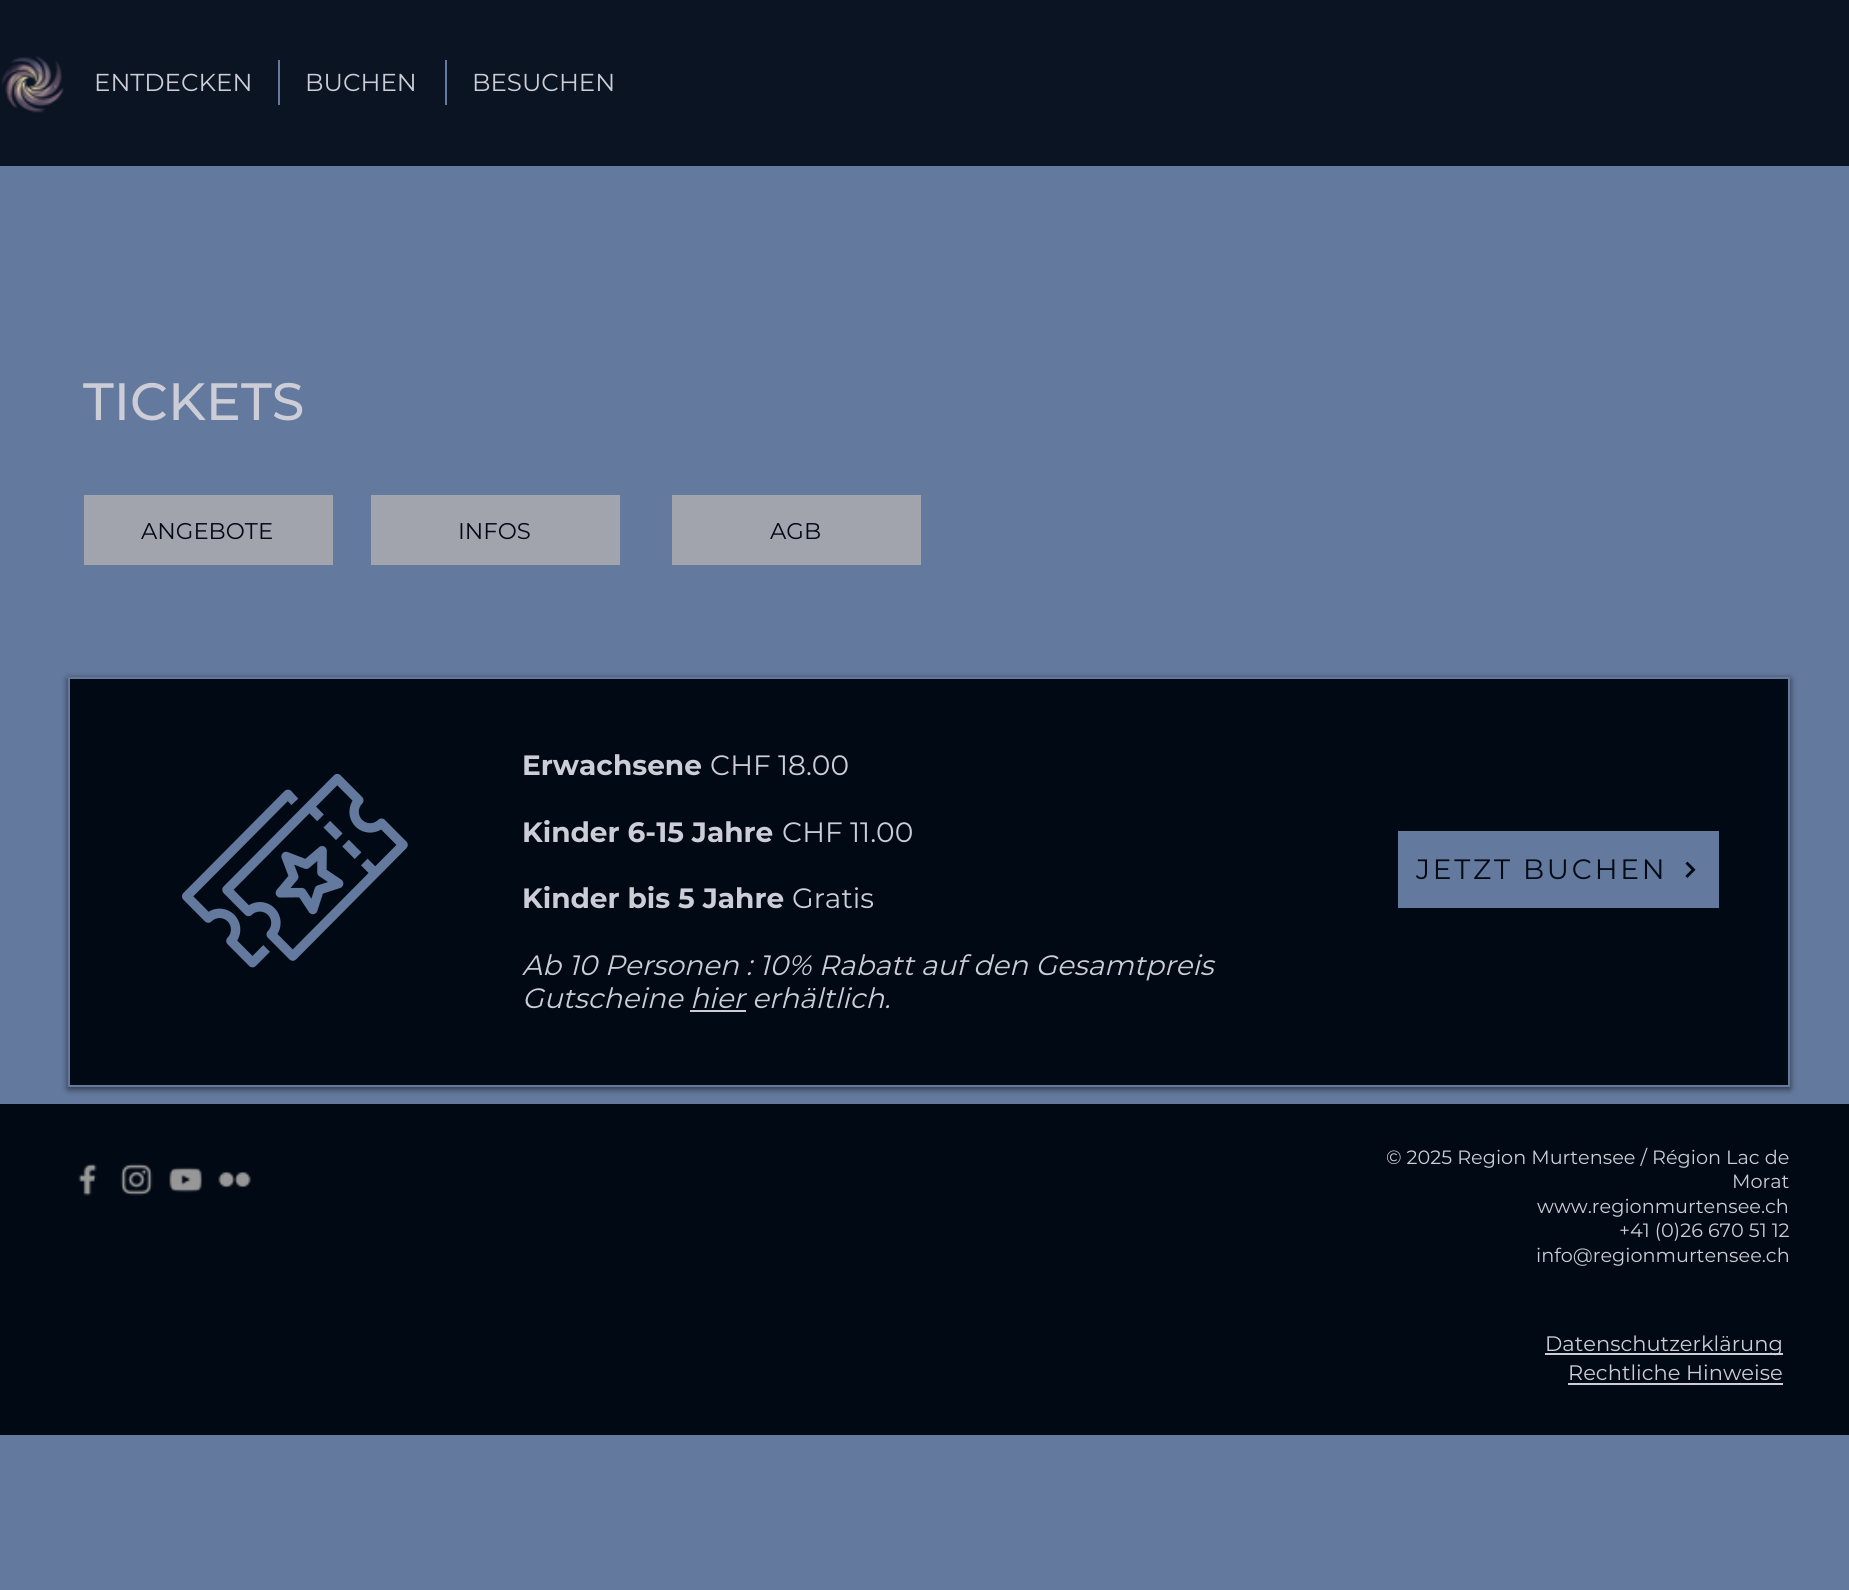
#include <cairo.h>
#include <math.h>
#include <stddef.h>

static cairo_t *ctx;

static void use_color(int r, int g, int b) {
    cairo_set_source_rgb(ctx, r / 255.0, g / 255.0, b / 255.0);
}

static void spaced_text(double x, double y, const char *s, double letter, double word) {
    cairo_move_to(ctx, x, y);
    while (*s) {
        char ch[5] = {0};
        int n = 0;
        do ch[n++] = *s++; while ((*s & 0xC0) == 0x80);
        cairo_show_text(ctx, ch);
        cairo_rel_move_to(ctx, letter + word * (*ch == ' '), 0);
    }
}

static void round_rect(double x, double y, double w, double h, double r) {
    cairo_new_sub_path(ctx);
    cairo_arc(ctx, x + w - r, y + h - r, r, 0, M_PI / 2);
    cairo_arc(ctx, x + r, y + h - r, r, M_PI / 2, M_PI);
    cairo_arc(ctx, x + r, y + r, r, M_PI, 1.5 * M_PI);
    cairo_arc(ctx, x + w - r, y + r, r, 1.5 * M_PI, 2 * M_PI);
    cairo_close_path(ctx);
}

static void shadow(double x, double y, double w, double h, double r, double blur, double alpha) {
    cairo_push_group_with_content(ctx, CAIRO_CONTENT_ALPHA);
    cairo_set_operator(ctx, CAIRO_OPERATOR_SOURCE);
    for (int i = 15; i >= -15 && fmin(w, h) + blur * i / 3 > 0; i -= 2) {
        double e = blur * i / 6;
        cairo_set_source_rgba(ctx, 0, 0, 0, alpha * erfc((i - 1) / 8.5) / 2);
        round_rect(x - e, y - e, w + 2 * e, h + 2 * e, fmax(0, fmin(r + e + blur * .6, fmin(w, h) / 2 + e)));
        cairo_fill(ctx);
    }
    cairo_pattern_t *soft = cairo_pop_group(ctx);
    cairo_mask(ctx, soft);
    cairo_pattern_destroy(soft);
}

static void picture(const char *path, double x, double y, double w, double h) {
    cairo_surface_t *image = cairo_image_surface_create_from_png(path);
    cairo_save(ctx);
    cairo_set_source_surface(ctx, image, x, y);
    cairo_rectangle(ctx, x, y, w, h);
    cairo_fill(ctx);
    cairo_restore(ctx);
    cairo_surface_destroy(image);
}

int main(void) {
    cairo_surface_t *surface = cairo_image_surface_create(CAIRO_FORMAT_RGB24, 1849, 1590);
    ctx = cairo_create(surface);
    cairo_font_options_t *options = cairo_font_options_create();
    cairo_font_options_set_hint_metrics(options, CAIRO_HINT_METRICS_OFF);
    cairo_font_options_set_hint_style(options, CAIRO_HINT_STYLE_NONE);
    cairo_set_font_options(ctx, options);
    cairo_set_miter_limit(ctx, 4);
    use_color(100, 121, 158);
    cairo_paint(ctx);
    use_color(11, 20, 34);
    cairo_rectangle(ctx, 0, 0, 1849, 166);
    cairo_fill(ctx);
    picture("img1.png", 1, 56, 63, 57);
    cairo_select_font_face(ctx, "Montserrat", CAIRO_FONT_SLANT_NORMAL, CAIRO_FONT_WEIGHT_NORMAL);
    cairo_set_font_size(ctx, 24.5);
    use_color(204, 205, 214);
    cairo_move_to(ctx, 94, 91);
    cairo_show_text(ctx, "ENTDECKEN");
    use_color(100, 121, 158);
    cairo_rectangle(ctx, 278, 60, 2, 45);
    cairo_fill(ctx);
    use_color(204, 205, 214);
    cairo_move_to(ctx, 305, 91);
    cairo_show_text(ctx, "BUCHEN");
    use_color(100, 121, 158);
    cairo_rectangle(ctx, 445, 60, 2, 45);
    cairo_fill(ctx);
    use_color(204, 205, 214);
    cairo_move_to(ctx, 472, 91);
    cairo_show_text(ctx, "BESUCHEN");
    cairo_select_font_face(ctx, "Montserrat Medium", CAIRO_FONT_SLANT_NORMAL, CAIRO_FONT_WEIGHT_NORMAL);
    cairo_set_font_size(ctx, 52.5);
    cairo_move_to(ctx, 83, 420);
    cairo_show_text(ctx, "TICKETS");
    use_color(161, 163, 173);
    cairo_rectangle(ctx, 84, 495, 249, 70);
    cairo_fill(ctx);
    cairo_select_font_face(ctx, "Montserrat", CAIRO_FONT_SLANT_NORMAL, CAIRO_FONT_WEIGHT_NORMAL);
    cairo_set_font_size(ctx, 22.75);
    use_color(1, 9, 20);
    cairo_move_to(ctx, 141, 539);
    cairo_show_text(ctx, "ANGEBOTE");
    use_color(161, 163, 173);
    cairo_rectangle(ctx, 371, 495, 249, 70);
    cairo_fill(ctx);
    use_color(1, 9, 20);
    cairo_move_to(ctx, 458, 539);
    cairo_show_text(ctx, "INFOS");
    use_color(161, 163, 173);
    cairo_rectangle(ctx, 672, 495, 249, 70);
    cairo_fill(ctx);
    use_color(1, 9, 20);
    cairo_move_to(ctx, 770, 539);
    cairo_show_text(ctx, "AGB");
    use_color(0, 0, 0);
    shadow(68, 679, 1722, 410, 0, 3.5, 0.6);
    use_color(1, 9, 20);
    cairo_rectangle(ctx, 69, 678, 1720, 408);
    cairo_fill_preserve(ctx);
    use_color(100, 121, 158);
    cairo_stroke(ctx);
    picture("img2.png", 182, 773, 226, 195);
    cairo_select_font_face(ctx, "Montserrat", CAIRO_FONT_SLANT_NORMAL, CAIRO_FONT_WEIGHT_BOLD);
    cairo_set_font_size(ctx, 28);
    use_color(204, 205, 214);
    cairo_move_to(ctx, 522, 775);
    cairo_show_text(ctx, "Erwachsene");
    cairo_select_font_face(ctx, "Montserrat", CAIRO_FONT_SLANT_NORMAL, CAIRO_FONT_WEIGHT_NORMAL);
    cairo_move_to(ctx, 710, 775);
    cairo_show_text(ctx, "CHF 18.00");
    cairo_select_font_face(ctx, "Montserrat", CAIRO_FONT_SLANT_NORMAL, CAIRO_FONT_WEIGHT_BOLD);
    cairo_move_to(ctx, 522, 842);
    cairo_show_text(ctx, "Kinder 6-15 Jahre");
    cairo_select_font_face(ctx, "Montserrat", CAIRO_FONT_SLANT_NORMAL, CAIRO_FONT_WEIGHT_NORMAL);
    cairo_move_to(ctx, 782, 842);
    cairo_show_text(ctx, "CHF 11.00");
    cairo_select_font_face(ctx, "Montserrat", CAIRO_FONT_SLANT_NORMAL, CAIRO_FONT_WEIGHT_BOLD);
    cairo_move_to(ctx, 522, 908);
    cairo_show_text(ctx, "Kinder bis 5 Jahre");
    cairo_select_font_face(ctx, "Montserrat", CAIRO_FONT_SLANT_NORMAL, CAIRO_FONT_WEIGHT_NORMAL);
    cairo_move_to(ctx, 792, 908);
    cairo_show_text(ctx, "Gratis");
    cairo_select_font_face(ctx, "Montserrat", CAIRO_FONT_SLANT_ITALIC, CAIRO_FONT_WEIGHT_NORMAL);
    cairo_move_to(ctx, 522, 975);
    cairo_show_text(ctx, "Ab 10 Personen : 10% Rabatt auf den Gesamtpreis");
    cairo_move_to(ctx, 522, 1008);
    cairo_show_text(ctx, "Gutscheine hier erhältlich.");
    cairo_rectangle(ctx, 690, 1010, 56, 2);
    cairo_fill(ctx);
    use_color(100, 121, 158);
    cairo_rectangle(ctx, 1398, 831, 321, 77);
    cairo_fill(ctx);
    cairo_select_font_face(ctx, "Montserrat", CAIRO_FONT_SLANT_NORMAL, CAIRO_FONT_WEIGHT_NORMAL);
    use_color(1, 9, 20);
    spaced_text(1416, 879, "JETZT BUCHEN", 2.75, 0);
    picture("img3.png", 1685, 861, 11, 17);
    cairo_rectangle(ctx, 0, 1104, 1849, 331);
    cairo_fill(ctx);
    picture("img4.png", 78, 1163, 19, 33);
    picture("img5.png", 120, 1163, 33, 33);
    picture("img6.png", 169, 1167, 34, 26);
    picture("img7.png", 218, 1171, 33, 17);
    cairo_set_font_size(ctx, 19.25);
    use_color(204, 205, 214);
    cairo_move_to(ctx, 1386, 1164);
    cairo_show_text(ctx, "© 2025 Region Murtensee / Région Lac de");
    cairo_move_to(ctx, 1732, 1188);
    cairo_show_text(ctx, "Morat");
    cairo_move_to(ctx, 1537, 1213);
    cairo_show_text(ctx, "www.regionmurtensee.ch");
    cairo_move_to(ctx, 1619, 1237);
    cairo_show_text(ctx, "+41 (0)26 670 51 12");
    cairo_move_to(ctx, 1536, 1262);
    cairo_show_text(ctx, "info@regionmurtensee.ch");
    cairo_rectangle(ctx, 1545, 1353, 238, 2);
    cairo_fill(ctx);
    cairo_set_font_size(ctx, 21);
    cairo_move_to(ctx, 1545, 1351);
    cairo_show_text(ctx, "Datenschutzerklärung");
    cairo_move_to(ctx, 1568, 1380);
    cairo_show_text(ctx, "Rechtliche Hinweise");
    cairo_rectangle(ctx, 1568, 1383, 215, 2);
    cairo_fill(ctx);
    cairo_surface_write_to_png(surface, "result.png");
    cairo_font_options_destroy(options);
    cairo_destroy(ctx);
    cairo_surface_destroy(surface);
    return 0;
}
